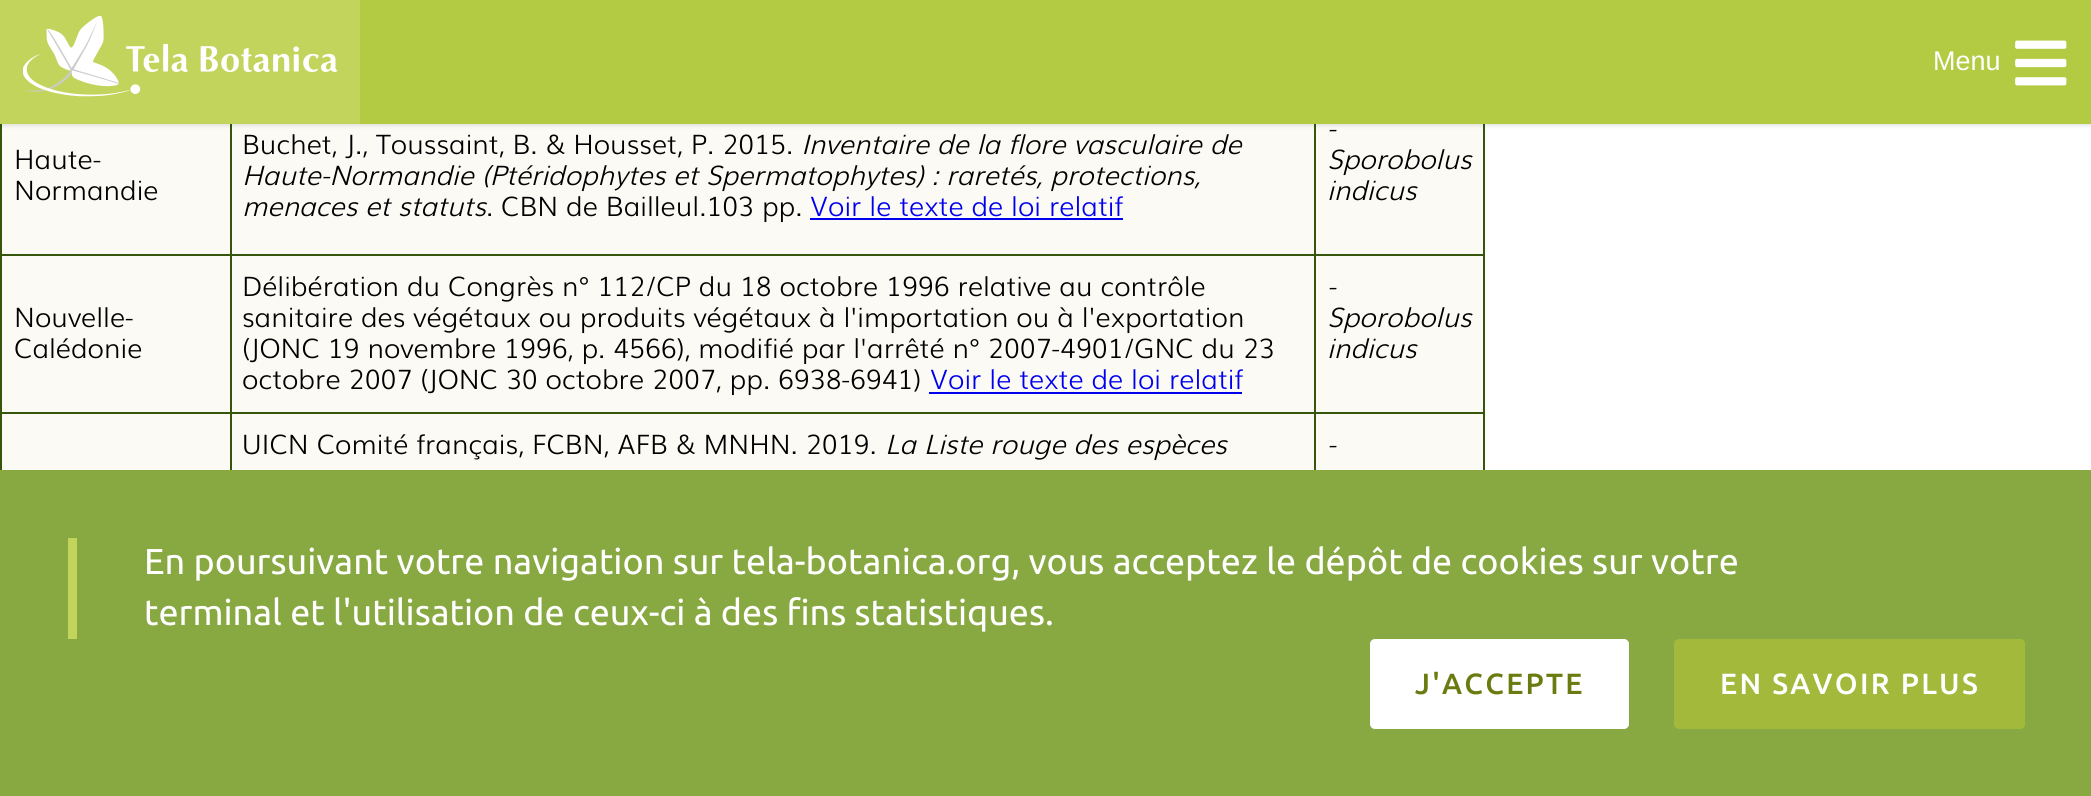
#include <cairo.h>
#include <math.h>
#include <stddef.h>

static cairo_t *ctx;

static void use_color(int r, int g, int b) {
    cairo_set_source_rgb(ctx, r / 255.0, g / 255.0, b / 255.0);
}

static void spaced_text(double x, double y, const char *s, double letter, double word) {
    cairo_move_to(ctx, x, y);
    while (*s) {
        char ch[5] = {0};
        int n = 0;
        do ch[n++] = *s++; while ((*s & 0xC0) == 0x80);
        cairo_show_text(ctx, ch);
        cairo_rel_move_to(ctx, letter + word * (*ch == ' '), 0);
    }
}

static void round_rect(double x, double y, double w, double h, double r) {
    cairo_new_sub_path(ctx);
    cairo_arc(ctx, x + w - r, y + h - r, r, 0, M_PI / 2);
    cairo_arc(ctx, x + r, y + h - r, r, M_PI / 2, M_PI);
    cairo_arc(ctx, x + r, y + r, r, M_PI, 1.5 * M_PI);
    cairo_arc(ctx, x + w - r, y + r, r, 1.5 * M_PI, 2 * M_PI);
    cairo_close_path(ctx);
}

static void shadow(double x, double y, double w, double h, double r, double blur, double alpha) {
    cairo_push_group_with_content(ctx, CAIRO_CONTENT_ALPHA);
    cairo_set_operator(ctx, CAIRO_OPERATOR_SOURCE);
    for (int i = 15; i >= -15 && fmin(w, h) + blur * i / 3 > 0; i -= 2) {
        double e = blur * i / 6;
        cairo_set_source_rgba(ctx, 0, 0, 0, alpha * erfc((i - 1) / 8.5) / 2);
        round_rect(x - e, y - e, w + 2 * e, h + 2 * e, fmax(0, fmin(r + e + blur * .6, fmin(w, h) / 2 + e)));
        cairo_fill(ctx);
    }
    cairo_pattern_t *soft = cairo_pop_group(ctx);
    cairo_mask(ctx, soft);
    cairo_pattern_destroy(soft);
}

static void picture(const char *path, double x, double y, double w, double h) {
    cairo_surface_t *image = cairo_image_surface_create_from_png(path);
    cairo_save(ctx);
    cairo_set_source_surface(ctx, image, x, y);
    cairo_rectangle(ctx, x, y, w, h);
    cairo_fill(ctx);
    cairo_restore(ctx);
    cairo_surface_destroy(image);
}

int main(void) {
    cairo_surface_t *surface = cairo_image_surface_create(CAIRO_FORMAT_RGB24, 2091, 796);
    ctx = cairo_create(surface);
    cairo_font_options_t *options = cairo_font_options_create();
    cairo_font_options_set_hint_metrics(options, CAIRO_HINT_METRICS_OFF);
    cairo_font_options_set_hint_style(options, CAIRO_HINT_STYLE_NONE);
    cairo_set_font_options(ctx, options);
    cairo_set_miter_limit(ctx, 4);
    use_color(255, 255, 255);
    cairo_paint(ctx);
    use_color(252, 250, 245);
    cairo_rectangle(ctx, 2, 124, 1481, 346);
    cairo_fill(ctx);
    use_color(54, 86, 11);
    cairo_rectangle(ctx, 1314, 254, 171, 2);
    cairo_fill(ctx);
    cairo_rectangle(ctx, 1314, 412, 171, 2);
    cairo_fill(ctx);
    cairo_rectangle(ctx, 1314, 412, 2, 58);
    cairo_fill(ctx);
    cairo_rectangle(ctx, 230, 412, 1086, 2);
    cairo_fill(ctx);
    cairo_rectangle(ctx, 1314, 254, 2, 160);
    cairo_fill(ctx);
    cairo_rectangle(ctx, 230, 254, 1086, 2);
    cairo_fill(ctx);
    cairo_rectangle(ctx, 230, 412, 2, 58);
    cairo_fill(ctx);
    cairo_rectangle(ctx, 0, 412, 232, 2);
    cairo_fill(ctx);
    cairo_rectangle(ctx, 230, 254, 2, 160);
    cairo_fill(ctx);
    cairo_rectangle(ctx, 0, 254, 232, 2);
    cairo_fill(ctx);
    cairo_rectangle(ctx, 230, 124, 2, 133);
    cairo_fill(ctx);
    cairo_rectangle(ctx, 1314, 124, 2, 133);
    cairo_fill(ctx);
    cairo_rectangle(ctx, 0, 412, 2, 58);
    cairo_fill(ctx);
    cairo_rectangle(ctx, 0, 124, 2, 290);
    cairo_fill(ctx);
    cairo_rectangle(ctx, 1483, 412, 2, 58);
    cairo_fill(ctx);
    cairo_rectangle(ctx, 1483, 124, 2, 290);
    cairo_fill(ctx);
    use_color(0, 0, 0);
    shadow(0, 2, 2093, 124, 0, 2, 0.1);
    use_color(178, 203, 67);
    cairo_rectangle(ctx, 360, 0, 1731, 124);
    cairo_fill(ctx);
    use_color(195, 212, 93);
    cairo_rectangle(ctx, 0, 0, 360, 124);
    cairo_fill(ctx);
    picture("img1.png", 23, 16, 315, 81);
    cairo_select_font_face(ctx, "Liberation Sans", CAIRO_FONT_SLANT_NORMAL, CAIRO_FONT_WEIGHT_NORMAL);
    cairo_set_font_size(ctx, 27);
    use_color(255, 255, 255);
    cairo_move_to(ctx, 1933, 70);
    cairo_show_text(ctx, "Menu");
    picture("img2.png", 2015, 40, 52, 46);
    cairo_select_font_face(ctx, "Muli Light", CAIRO_FONT_SLANT_NORMAL, CAIRO_FONT_WEIGHT_NORMAL);
    use_color(0, 0, 0);
    cairo_move_to(ctx, 14, 169);
    cairo_show_text(ctx, "Haute-");
    cairo_move_to(ctx, 14, 200);
    cairo_show_text(ctx, "Normandie");
    cairo_move_to(ctx, 242, 154);
    cairo_show_text(ctx, "Buchet, J., Toussaint, B. & Housset, P. 2015.");
    cairo_select_font_face(ctx, "Muli Light", CAIRO_FONT_SLANT_ITALIC, CAIRO_FONT_WEIGHT_NORMAL);
    cairo_move_to(ctx, 801, 154);
    cairo_show_text(ctx, "Inventaire de la flore vasculaire de");
    cairo_move_to(ctx, 242, 185);
    cairo_show_text(ctx, "Haute-Normandie (Ptéridophytes et Spermatophytes) : raretés, protections,");
    cairo_move_to(ctx, 242, 216);
    cairo_show_text(ctx, "menaces et statuts");
    cairo_select_font_face(ctx, "Muli Light", CAIRO_FONT_SLANT_NORMAL, CAIRO_FONT_WEIGHT_NORMAL);
    cairo_move_to(ctx, 486, 216);
    cairo_show_text(ctx, ". CBN de Bailleul.103 pp.");
    use_color(0, 0, 238);
    cairo_move_to(ctx, 810, 216);
    cairo_show_text(ctx, "Voir le texte de loi relatif");
    cairo_rectangle(ctx, 810, 218, 313, 2);
    cairo_fill(ctx);
    cairo_select_font_face(ctx, "Muli Light", CAIRO_FONT_SLANT_ITALIC, CAIRO_FONT_WEIGHT_NORMAL);
    use_color(0, 0, 0);
    cairo_move_to(ctx, 1327, 138);
    cairo_show_text(ctx, "-");
    cairo_move_to(ctx, 1327, 169);
    cairo_show_text(ctx, "Sporobolus");
    cairo_move_to(ctx, 1327, 200);
    cairo_show_text(ctx, "indicus");
    cairo_select_font_face(ctx, "Muli Light", CAIRO_FONT_SLANT_NORMAL, CAIRO_FONT_WEIGHT_NORMAL);
    cairo_move_to(ctx, 14, 327);
    cairo_show_text(ctx, "Nouvelle-");
    cairo_move_to(ctx, 14, 358);
    cairo_show_text(ctx, "Calédonie");
    cairo_move_to(ctx, 242, 296);
    cairo_show_text(ctx, "Délibération du Congrès n° 112/CP du 18 octobre 1996 relative au contrôle");
    cairo_move_to(ctx, 242, 327);
    cairo_show_text(ctx, "sanitaire des végétaux ou produits végétaux à l'importation ou à l'exportation");
    cairo_move_to(ctx, 242, 358);
    cairo_show_text(ctx, "(JONC 19 novembre 1996, p. 4566), modifié par l'arrêté n° 2007-4901/GNC du 23");
    cairo_move_to(ctx, 242, 389);
    cairo_show_text(ctx, "octobre 2007 (JONC 30 octobre 2007, pp. 6938-6941)");
    use_color(0, 0, 238);
    cairo_move_to(ctx, 930, 389);
    cairo_show_text(ctx, "Voir le texte de loi relatif");
    cairo_rectangle(ctx, 929, 392, 313, 2);
    cairo_fill(ctx);
    cairo_select_font_face(ctx, "Muli Light", CAIRO_FONT_SLANT_ITALIC, CAIRO_FONT_WEIGHT_NORMAL);
    use_color(0, 0, 0);
    cairo_move_to(ctx, 1327, 296);
    cairo_show_text(ctx, "-");
    cairo_move_to(ctx, 1327, 327);
    cairo_show_text(ctx, "Sporobolus");
    cairo_move_to(ctx, 1327, 358);
    cairo_show_text(ctx, "indicus");
    cairo_select_font_face(ctx, "Muli Light", CAIRO_FONT_SLANT_NORMAL, CAIRO_FONT_WEIGHT_NORMAL);
    cairo_move_to(ctx, 242, 454);
    cairo_show_text(ctx, "UICN Comité français, FCBN, AFB & MNHN. 2019.");
    cairo_select_font_face(ctx, "Muli Light", CAIRO_FONT_SLANT_ITALIC, CAIRO_FONT_WEIGHT_NORMAL);
    cairo_move_to(ctx, 885, 454);
    cairo_show_text(ctx, "La Liste rouge des espèces");
    cairo_move_to(ctx, 1327, 454);
    cairo_show_text(ctx, "-");
    use_color(136, 168, 66);
    cairo_rectangle(ctx, 0, 470, 2091, 326);
    cairo_fill(ctx);
    use_color(195, 212, 93);
    cairo_rectangle(ctx, 68, 538, 9, 101);
    cairo_fill(ctx);
    cairo_select_font_face(ctx, "Ubuntu", CAIRO_FONT_SLANT_NORMAL, CAIRO_FONT_WEIGHT_NORMAL);
    cairo_set_font_size(ctx, 36);
    use_color(255, 255, 255);
    cairo_move_to(ctx, 144, 574);
    cairo_show_text(ctx, "En poursuivant votre navigation sur tela-botanica.org, vous acceptez le dépôt de cookies sur votre");
    cairo_move_to(ctx, 144, 625);
    cairo_show_text(ctx, "terminal et l'utilisation de ceux-ci à des fins statistiques.");
    round_rect(1370, 639, 259, 90, 5);
    cairo_fill(ctx);
    cairo_select_font_face(ctx, "Ubuntu Medium", CAIRO_FONT_SLANT_NORMAL, CAIRO_FONT_WEIGHT_NORMAL);
    cairo_set_font_size(ctx, 29.25);
    use_color(108, 123, 15);
    spaced_text(1415, 694, "J'ACCEPTE", 2.25, 0);
    use_color(162, 185, 59);
    round_rect(1674, 639, 351, 90, 5);
    cairo_fill(ctx);
    use_color(255, 255, 255);
    spaced_text(1720, 694, "EN SAVOIR PLUS", 2.25, 0);
    cairo_surface_write_to_png(surface, "result.png");
    cairo_font_options_destroy(options);
    cairo_destroy(ctx);
    cairo_surface_destroy(surface);
    return 0;
}
